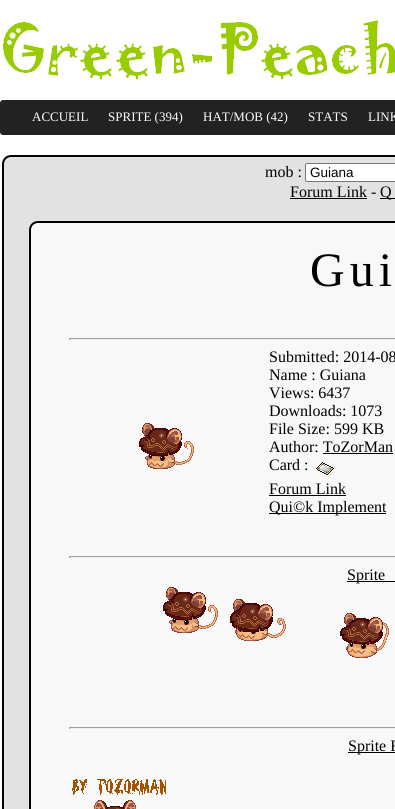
#include <cairo.h>
#include <math.h>
#include <stddef.h>

static cairo_t *ctx;

static void use_color(int r, int g, int b) {
    cairo_set_source_rgb(ctx, r / 255.0, g / 255.0, b / 255.0);
}

static void spaced_text(double x, double y, const char *s, double letter, double word) {
    cairo_move_to(ctx, x, y);
    while (*s) {
        char ch[5] = {0};
        int n = 0;
        do ch[n++] = *s++; while ((*s & 0xC0) == 0x80);
        cairo_show_text(ctx, ch);
        cairo_rel_move_to(ctx, letter + word * (*ch == ' '), 0);
    }
}

static void round_rect(double x, double y, double w, double h, double r) {
    cairo_new_sub_path(ctx);
    cairo_arc(ctx, x + w - r, y + h - r, r, 0, M_PI / 2);
    cairo_arc(ctx, x + r, y + h - r, r, M_PI / 2, M_PI);
    cairo_arc(ctx, x + r, y + r, r, M_PI, 1.5 * M_PI);
    cairo_arc(ctx, x + w - r, y + r, r, 1.5 * M_PI, 2 * M_PI);
    cairo_close_path(ctx);
}

static void picture(const char *path, double x, double y, double w, double h) {
    cairo_surface_t *image = cairo_image_surface_create_from_png(path);
    cairo_save(ctx);
    cairo_set_source_surface(ctx, image, x, y);
    cairo_rectangle(ctx, x, y, w, h);
    cairo_fill(ctx);
    cairo_restore(ctx);
    cairo_surface_destroy(image);
}

int main(void) {
    cairo_surface_t *surface = cairo_image_surface_create(CAIRO_FORMAT_RGB24, 395, 809);
    ctx = cairo_create(surface);
    cairo_font_options_t *options = cairo_font_options_create();
    cairo_font_options_set_hint_metrics(options, CAIRO_HINT_METRICS_OFF);
    cairo_font_options_set_hint_style(options, CAIRO_HINT_STYLE_NONE);
    cairo_set_font_options(ctx, options);
    cairo_set_miter_limit(ctx, 4);
    use_color(255, 255, 255);
    cairo_paint(ctx);
    picture("img1.png", 3, 20, 392, 60);
    use_color(34, 34, 34);
    round_rect(0, 100, 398, 35, 3);
    cairo_fill(ctx);
    cairo_select_font_face(ctx, "Liberation Serif", CAIRO_FONT_SLANT_NORMAL, CAIRO_FONT_WEIGHT_NORMAL);
    cairo_set_font_size(ctx, 13);
    use_color(255, 255, 255);
    cairo_move_to(ctx, 32, 121);
    cairo_show_text(ctx, "ACCUEIL");
    cairo_move_to(ctx, 108, 121);
    cairo_show_text(ctx, "SPRITE (394)");
    cairo_move_to(ctx, 203, 121);
    cairo_show_text(ctx, "HAT/MOB (42)");
    cairo_move_to(ctx, 308, 121);
    cairo_show_text(ctx, "STATS");
    cairo_move_to(ctx, 368, 121);
    cairo_show_text(ctx, "LINK");
    use_color(226, 226, 226);
    round_rect(3, 156, 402, 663, 8);
    cairo_fill_preserve(ctx);
    use_color(0, 0, 0);
    cairo_stroke(ctx);
    cairo_set_font_size(ctx, 16);
    cairo_move_to(ctx, 265, 177);
    cairo_show_text(ctx, "mob :");
    use_color(255, 255, 255);
    round_rect(305.5, 163.5, 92, 18, 1.5);
    cairo_fill_preserve(ctx);
    use_color(118, 118, 118);
    cairo_set_line_width(ctx, 1);
    cairo_stroke(ctx);
    cairo_select_font_face(ctx, "Liberation Sans", CAIRO_FONT_SLANT_NORMAL, CAIRO_FONT_WEIGHT_NORMAL);
    cairo_set_font_size(ctx, 13.5);
    use_color(0, 0, 0);
    cairo_move_to(ctx, 310, 177);
    cairo_show_text(ctx, "Guiana");
    cairo_select_font_face(ctx, "Liberation Serif", CAIRO_FONT_SLANT_NORMAL, CAIRO_FONT_WEIGHT_NORMAL);
    cairo_set_font_size(ctx, 16);
    cairo_move_to(ctx, 290, 197);
    cairo_show_text(ctx, "Forum Link -");
    cairo_rectangle(ctx, 290, 198, 77, 1);
    cairo_fill(ctx);
    cairo_rectangle(ctx, 380, 198, 15, 1);
    cairo_fill(ctx);
    cairo_move_to(ctx, 380, 197);
    cairo_show_text(ctx, "Q");
    use_color(248, 248, 248);
    round_rect(30, 222, 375, 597, 8);
    cairo_fill_preserve(ctx);
    use_color(0, 0, 0);
    cairo_set_line_width(ctx, 2);
    cairo_stroke(ctx);
    cairo_set_font_size(ctx, 48);
    spaced_text(310, 286, "Gui", 5, 0);
    use_color(159, 159, 159);
    cairo_rectangle(ctx, 69, 338, 326, 1);
    cairo_fill(ctx);
    use_color(238, 238, 238);
    cairo_rectangle(ctx, 69, 339, 326, 1);
    cairo_fill(ctx);
    use_color(159, 159, 159);
    cairo_rectangle(ctx, 69, 338, 1, 2);
    cairo_fill(ctx);
    picture("img2.png", 139, 423, 55, 46);
    cairo_set_font_size(ctx, 16);
    use_color(0, 0, 0);
    cairo_move_to(ctx, 269, 362);
    cairo_show_text(ctx, "Submitted: 2014-08");
    cairo_move_to(ctx, 269, 380);
    cairo_show_text(ctx, "Name : Guiana");
    cairo_move_to(ctx, 269, 398);
    cairo_show_text(ctx, "Views: 6437");
    cairo_move_to(ctx, 269, 416);
    cairo_show_text(ctx, "Downloads: 1073");
    cairo_move_to(ctx, 269, 434);
    cairo_show_text(ctx, "File Size: 599 KB");
    cairo_move_to(ctx, 269, 452);
    cairo_show_text(ctx, "Author: ToZorMan");
    cairo_rectangle(ctx, 323, 453, 70, 1);
    cairo_fill(ctx);
    cairo_move_to(ctx, 269, 470);
    cairo_show_text(ctx, "Card :");
    picture("img3.png", 316, 462, 18, 13);
    cairo_move_to(ctx, 269, 494);
    cairo_show_text(ctx, "Forum Link");
    cairo_rectangle(ctx, 269, 495, 77, 1);
    cairo_fill(ctx);
    cairo_rectangle(ctx, 269, 513, 117, 1);
    cairo_fill(ctx);
    cairo_move_to(ctx, 269, 512);
    cairo_show_text(ctx, "Qui©k Implement");
    use_color(159, 159, 159);
    cairo_rectangle(ctx, 69, 556, 326, 1);
    cairo_fill(ctx);
    use_color(238, 238, 238);
    cairo_rectangle(ctx, 69, 557, 326, 1);
    cairo_fill(ctx);
    use_color(159, 159, 159);
    cairo_rectangle(ctx, 69, 556, 1, 2);
    cairo_fill(ctx);
    use_color(0, 0, 0);
    cairo_rectangle(ctx, 347, 581, 48, 1);
    cairo_fill(ctx);
    cairo_move_to(ctx, 347, 580);
    cairo_show_text(ctx, "Sprite");
    picture("img2.png", 163, 587, 55, 46);
    picture("img4.png", 230, 599, 56, 42);
    picture("img5.png", 340, 613, 49, 45);
    use_color(159, 159, 159);
    cairo_rectangle(ctx, 69, 727, 326, 1);
    cairo_fill(ctx);
    use_color(238, 238, 238);
    cairo_rectangle(ctx, 69, 728, 326, 1);
    cairo_fill(ctx);
    use_color(159, 159, 159);
    cairo_rectangle(ctx, 69, 727, 1, 2);
    cairo_fill(ctx);
    use_color(0, 0, 0);
    cairo_rectangle(ctx, 348, 752, 47, 1);
    cairo_fill(ctx);
    cairo_move_to(ctx, 348, 751);
    cairo_show_text(ctx, "Sprite F");
    picture("img6.png", 72, 779, 94, 30);
    cairo_surface_write_to_png(surface, "result.png");
    cairo_font_options_destroy(options);
    cairo_destroy(ctx);
    cairo_surface_destroy(surface);
    return 0;
}
